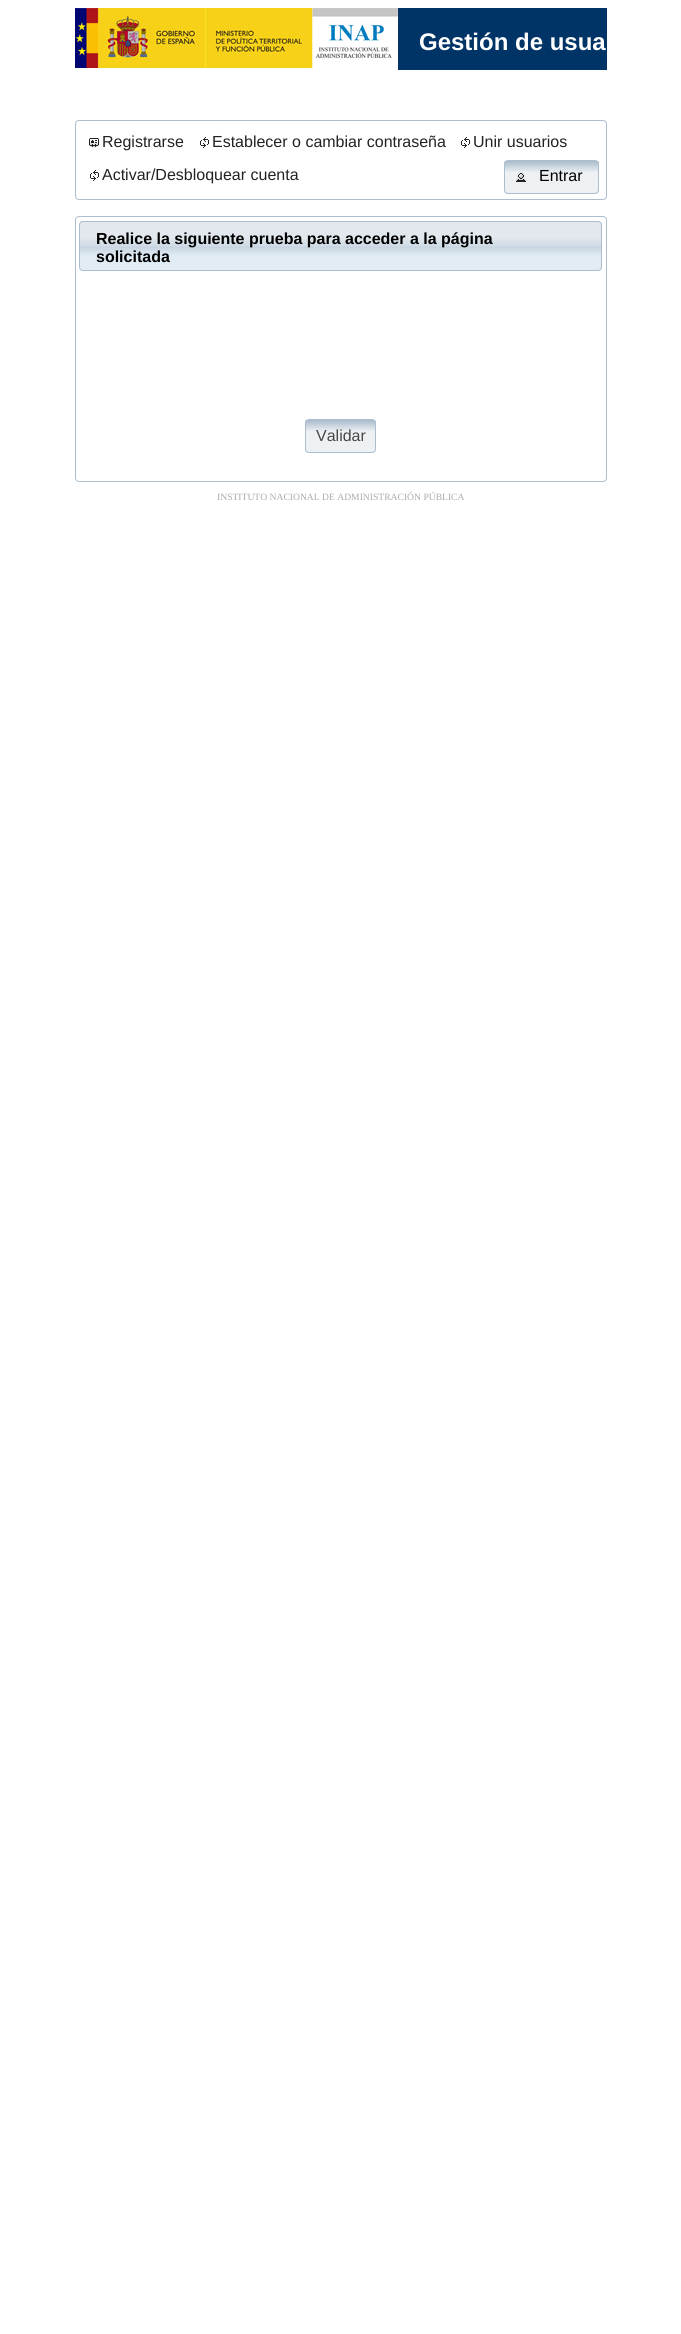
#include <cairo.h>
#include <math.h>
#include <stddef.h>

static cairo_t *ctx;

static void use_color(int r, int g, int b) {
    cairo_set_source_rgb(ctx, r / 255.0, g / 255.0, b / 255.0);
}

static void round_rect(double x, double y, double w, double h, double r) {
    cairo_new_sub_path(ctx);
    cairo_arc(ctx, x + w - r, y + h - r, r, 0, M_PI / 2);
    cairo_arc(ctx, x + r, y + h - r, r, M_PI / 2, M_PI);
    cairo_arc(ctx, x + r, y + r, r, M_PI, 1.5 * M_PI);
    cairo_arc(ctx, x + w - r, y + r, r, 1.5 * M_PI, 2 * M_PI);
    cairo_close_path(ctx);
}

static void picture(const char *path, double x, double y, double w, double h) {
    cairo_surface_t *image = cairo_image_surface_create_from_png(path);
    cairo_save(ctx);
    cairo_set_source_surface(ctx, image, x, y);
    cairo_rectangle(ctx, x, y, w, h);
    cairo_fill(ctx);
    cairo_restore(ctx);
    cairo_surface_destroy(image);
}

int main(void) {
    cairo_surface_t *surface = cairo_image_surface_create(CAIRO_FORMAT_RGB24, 681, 2334);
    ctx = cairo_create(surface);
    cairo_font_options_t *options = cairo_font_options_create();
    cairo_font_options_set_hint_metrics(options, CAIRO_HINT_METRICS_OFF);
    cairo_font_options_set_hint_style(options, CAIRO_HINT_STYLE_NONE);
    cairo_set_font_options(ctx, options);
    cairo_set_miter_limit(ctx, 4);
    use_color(255, 255, 255);
    cairo_paint(ctx);
    picture("img1.png", 75, 8, 323, 60);
    use_color(0, 51, 102);
    cairo_rectangle(ctx, 398, 8, 209, 62);
    cairo_fill(ctx);
    cairo_select_font_face(ctx, "Liberation Sans", CAIRO_FONT_SLANT_NORMAL, CAIRO_FONT_WEIGHT_BOLD);
    cairo_set_font_size(ctx, 24);
    use_color(255, 255, 255);
    cairo_move_to(ctx, 419, 50);
    cairo_show_text(ctx, "Gestión de usua");
    round_rect(75.5, 120.5, 531, 79, 3.5);
    use_color(172, 190, 206);
    cairo_set_line_width(ctx, 1);
    cairo_stroke(ctx);
    picture("img2.png", 89, 138, 10, 9);
    cairo_select_font_face(ctx, "Liberation Sans", CAIRO_FONT_SLANT_NORMAL, CAIRO_FONT_WEIGHT_NORMAL);
    cairo_set_font_size(ctx, 16);
    use_color(34, 34, 34);
    cairo_move_to(ctx, 102, 147);
    cairo_show_text(ctx, "Registrarse");
    picture("img3.png", 200, 137, 9, 11);
    cairo_move_to(ctx, 212, 147);
    cairo_show_text(ctx, "Establecer o cambiar contraseña");
    picture("img3.png", 461, 137, 9, 11);
    cairo_move_to(ctx, 473, 147);
    cairo_show_text(ctx, "Unir usuarios");
    picture("img3.png", 90, 170, 9, 11);
    cairo_move_to(ctx, 102, 180);
    cairo_show_text(ctx, "Activar/Desbloquear cuenta");
    picture("img4.png", 504, 161, 95, 33);
    round_rect(504.5, 160.5, 94, 33, 3.5);
    use_color(172, 190, 206);
    cairo_stroke(ctx);
    picture("img5.png", 516, 172, 10, 10);
    use_color(0, 0, 0);
    cairo_move_to(ctx, 539, 181);
    cairo_show_text(ctx, "Entrar");
    round_rect(75.5, 216.5, 531, 265, 3.5);
    use_color(172, 190, 206);
    cairo_stroke(ctx);
    picture("img6.png", 79, 221, 523, 50);
    round_rect(79.5, 221.5, 522, 49, 3.5);
    cairo_stroke(ctx);
    cairo_select_font_face(ctx, "Liberation Sans", CAIRO_FONT_SLANT_NORMAL, CAIRO_FONT_WEIGHT_BOLD);
    use_color(0, 0, 0);
    cairo_move_to(ctx, 96, 244);
    cairo_show_text(ctx, "Realice la siguiente prueba para acceder a la página");
    cairo_move_to(ctx, 96, 262);
    cairo_show_text(ctx, "solicitada");
    picture("img7.png", 305, 420, 71, 33);
    round_rect(305.5, 419.5, 70, 33, 3.5);
    use_color(172, 190, 206);
    cairo_stroke(ctx);
    cairo_select_font_face(ctx, "Liberation Sans", CAIRO_FONT_SLANT_NORMAL, CAIRO_FONT_WEIGHT_NORMAL);
    use_color(71, 71, 71);
    cairo_move_to(ctx, 316, 441);
    cairo_show_text(ctx, "Validar");
    cairo_select_font_face(ctx, "Liberation Serif", CAIRO_FONT_SLANT_NORMAL, CAIRO_FONT_WEIGHT_NORMAL);
    cairo_set_font_size(ctx, 9.6);
    use_color(170, 170, 170);
    cairo_move_to(ctx, 217, 500);
    cairo_show_text(ctx, "INSTITUTO NACIONAL DE ADMINISTRACIÓN PÚBLICA");
    cairo_surface_write_to_png(surface, "result.png");
    cairo_font_options_destroy(options);
    cairo_destroy(ctx);
    cairo_surface_destroy(surface);
    return 0;
}
